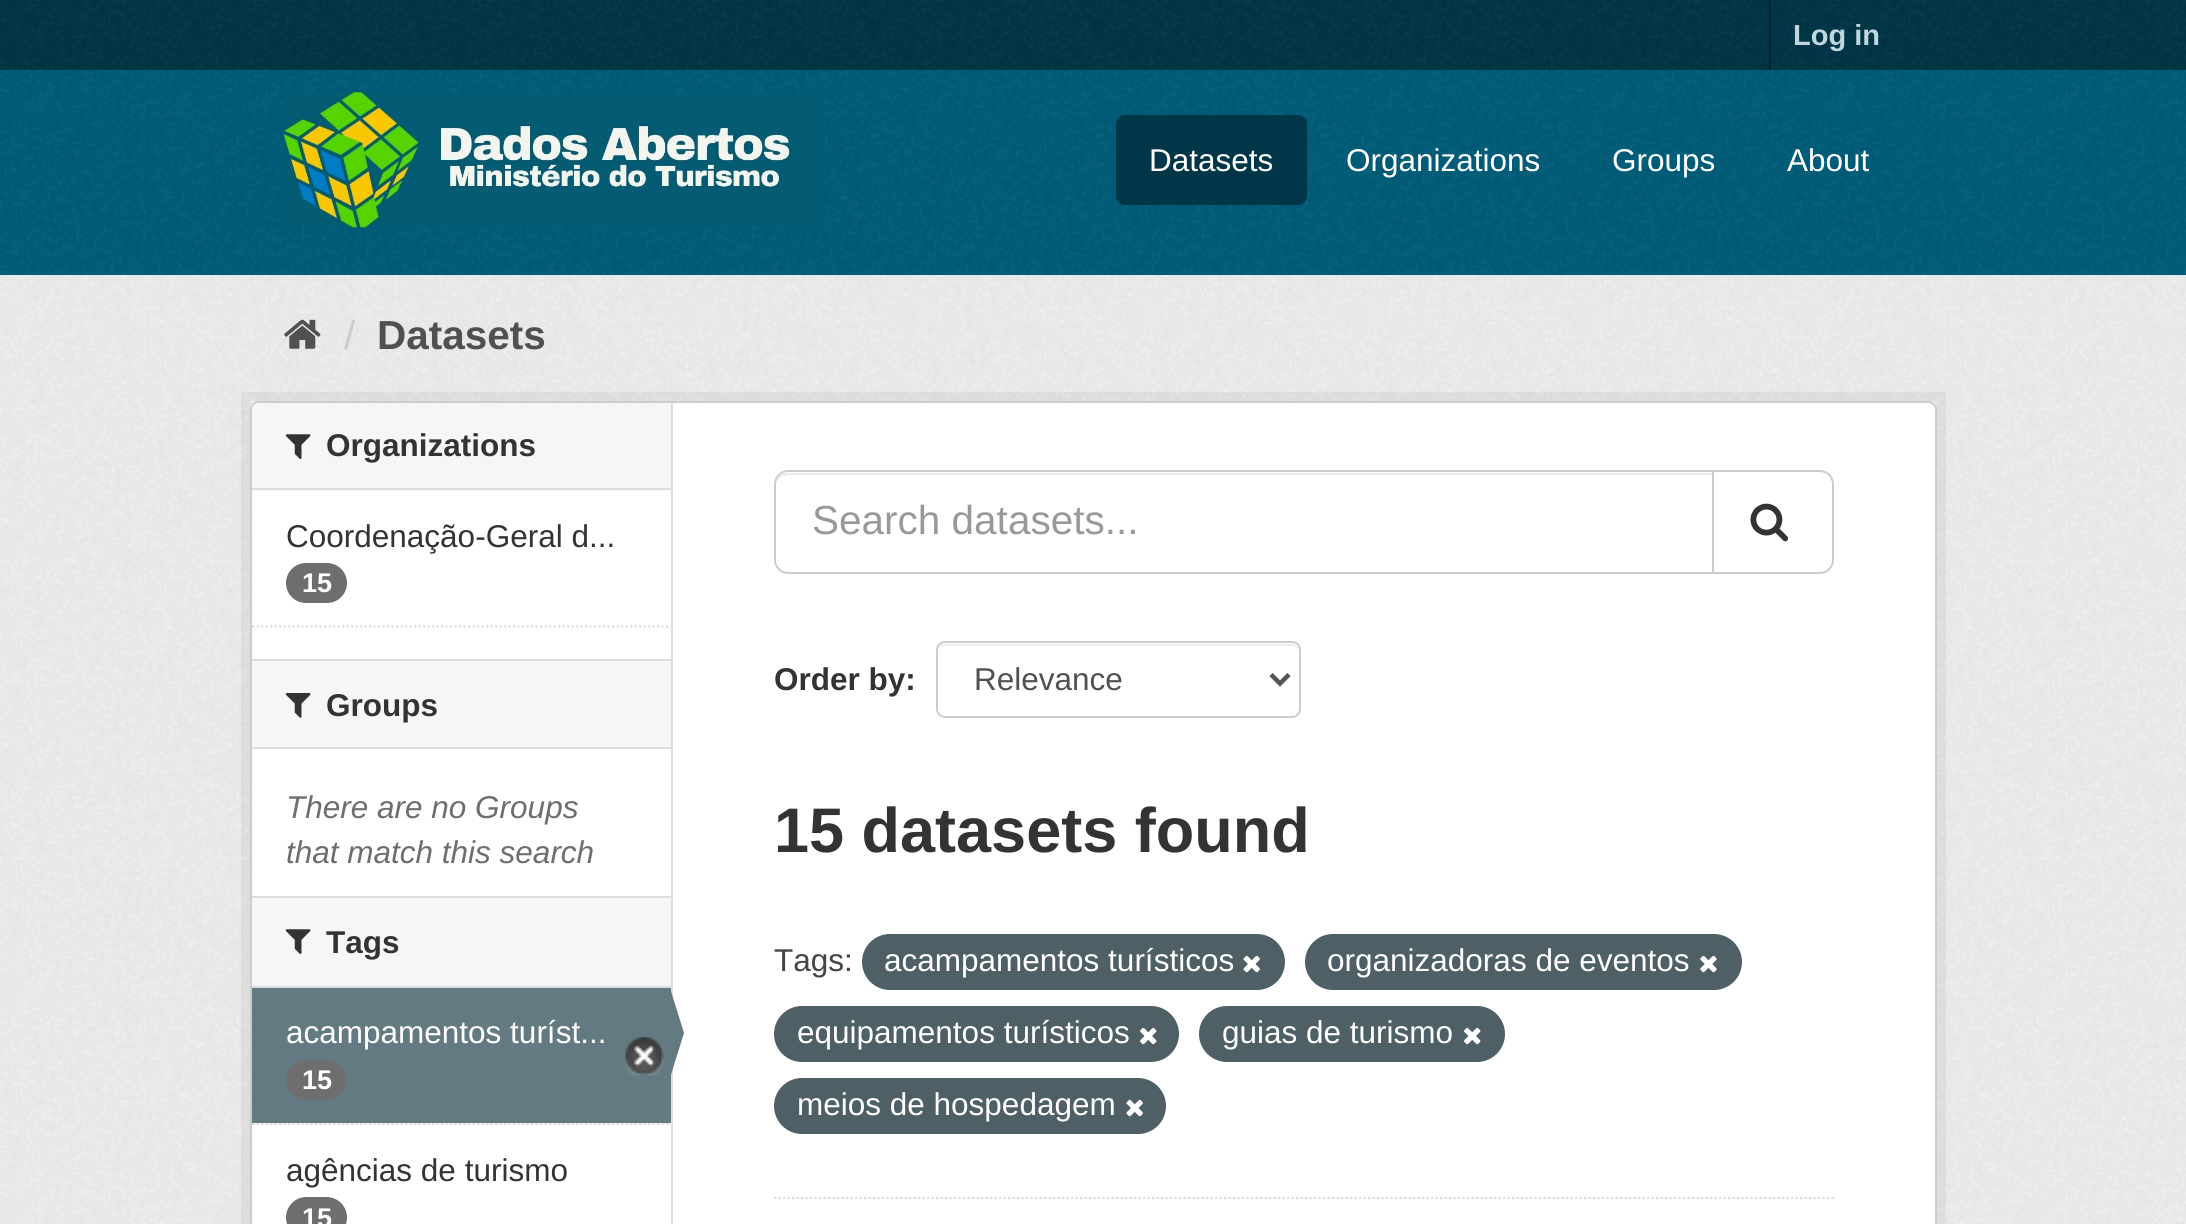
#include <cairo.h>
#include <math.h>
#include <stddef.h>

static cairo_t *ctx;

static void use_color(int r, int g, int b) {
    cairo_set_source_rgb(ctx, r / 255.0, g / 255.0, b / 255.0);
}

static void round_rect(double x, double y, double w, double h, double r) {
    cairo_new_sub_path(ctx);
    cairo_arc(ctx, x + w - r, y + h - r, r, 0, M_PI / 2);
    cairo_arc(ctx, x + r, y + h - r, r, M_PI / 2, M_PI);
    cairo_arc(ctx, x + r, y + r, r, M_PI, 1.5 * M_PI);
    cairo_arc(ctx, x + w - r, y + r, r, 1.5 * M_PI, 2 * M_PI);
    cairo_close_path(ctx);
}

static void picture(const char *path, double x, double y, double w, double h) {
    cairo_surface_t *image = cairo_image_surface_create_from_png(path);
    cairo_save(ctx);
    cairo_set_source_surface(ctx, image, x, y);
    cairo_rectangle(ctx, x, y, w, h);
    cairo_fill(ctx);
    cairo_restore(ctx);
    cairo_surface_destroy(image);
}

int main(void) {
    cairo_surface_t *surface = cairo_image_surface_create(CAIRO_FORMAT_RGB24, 2186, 1224);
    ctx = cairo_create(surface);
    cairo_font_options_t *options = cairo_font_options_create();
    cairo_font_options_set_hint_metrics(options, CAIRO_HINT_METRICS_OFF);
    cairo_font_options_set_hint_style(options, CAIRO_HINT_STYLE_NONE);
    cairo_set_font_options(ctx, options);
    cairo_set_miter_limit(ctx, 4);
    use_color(0, 54, 71);
    cairo_paint(ctx);
    picture("img1.png", 0, 0, 2186, 70);
    use_color(0, 35, 46);
    cairo_rectangle(ctx, 1769, 0, 2, 70);
    cairo_fill(ctx);
    cairo_select_font_face(ctx, "Liberation Sans", CAIRO_FONT_SLANT_NORMAL, CAIRO_FONT_WEIGHT_BOLD);
    cairo_set_font_size(ctx, 29);
    use_color(191, 215, 222);
    cairo_move_to(ctx, 1793, 45);
    cairo_show_text(ctx, "Log in");
    use_color(0, 93, 122);
    cairo_rectangle(ctx, 0, 70, 2186, 205);
    cairo_fill(ctx);
    picture("img2.png", 0, 70, 2186, 204);
    picture("img3.png", 283, 92, 541, 136);
    use_color(0, 54, 71);
    round_rect(1116, 115, 191, 90, 9);
    cairo_fill(ctx);
    cairo_select_font_face(ctx, "Liberation Sans", CAIRO_FONT_SLANT_NORMAL, CAIRO_FONT_WEIGHT_NORMAL);
    cairo_set_font_size(ctx, 31.5);
    use_color(255, 255, 255);
    cairo_move_to(ctx, 1149, 171);
    cairo_show_text(ctx, "Datasets");
    cairo_move_to(ctx, 1346, 171);
    cairo_show_text(ctx, "Organizations");
    cairo_move_to(ctx, 1612, 171);
    cairo_show_text(ctx, "Groups");
    cairo_move_to(ctx, 1787, 171);
    cairo_show_text(ctx, "About");
    use_color(238, 238, 238);
    cairo_rectangle(ctx, 0, 275, 2186, 949);
    cairo_fill(ctx);
    picture("img4.png", 0, 275, 2186, 949);
    picture("img5.png", 284, 319, 37, 30);
    cairo_set_font_size(ctx, 40.5);
    use_color(204, 204, 204);
    cairo_move_to(ctx, 344, 349);
    cairo_show_text(ctx, "/");
    cairo_select_font_face(ctx, "Liberation Sans", CAIRO_FONT_SLANT_NORMAL, CAIRO_FONT_WEIGHT_BOLD);
    use_color(80, 80, 80);
    cairo_move_to(ctx, 377, 349);
    cairo_show_text(ctx, "Datasets");
    cairo_rectangle(ctx, 245.5, 396.5, 1696, 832);
    cairo_set_source_rgba(ctx, 0, 0, 0, 0.05);
    cairo_set_line_width(ctx, 9);
    cairo_stroke(ctx);
    use_color(255, 255, 255);
    round_rect(251, 402, 1685, 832, 8);
    cairo_fill_preserve(ctx);
    use_color(204, 204, 204);
    cairo_set_line_width(ctx, 2);
    cairo_stroke(ctx);
    use_color(246, 246, 246);
    cairo_new_path(ctx);
    cairo_move_to(ctx, 259, 403);
    cairo_line_to(ctx, 671, 403);
    cairo_line_to(ctx, 671, 491);
    cairo_line_to(ctx, 252, 491);
    cairo_line_to(ctx, 252, 410);
    cairo_curve_to(ctx, 252, 406, 255, 403, 259, 403);
    cairo_close_path(ctx);
    cairo_fill(ctx);
    use_color(221, 221, 221);
    cairo_rectangle(ctx, 252, 488, 419, 2);
    cairo_fill(ctx);
    picture("img6.png", 285, 434, 26, 25);
    cairo_set_font_size(ctx, 31.5);
    use_color(51, 51, 51);
    cairo_move_to(ctx, 326, 456);
    cairo_show_text(ctx, "Organizations");
    cairo_select_font_face(ctx, "Liberation Sans", CAIRO_FONT_SLANT_NORMAL, CAIRO_FONT_WEIGHT_NORMAL);
    cairo_move_to(ctx, 286, 547);
    cairo_show_text(ctx, "Coordenação-Geral d...");
    use_color(110, 110, 110);
    round_rect(286, 563, 61, 40, 20);
    cairo_fill(ctx);
    cairo_select_font_face(ctx, "Liberation Sans", CAIRO_FONT_SLANT_NORMAL, CAIRO_FONT_WEIGHT_BOLD);
    cairo_set_font_size(ctx, 27);
    use_color(255, 255, 255);
    cairo_move_to(ctx, 302, 592);
    cairo_show_text(ctx, "15");
    cairo_new_path(ctx);
    cairo_move_to(ctx, 252, 626.5);
    cairo_line_to(ctx, 670.5, 626.5);
    use_color(221, 221, 221);
    cairo_set_line_width(ctx, 2.2);
    cairo_set_dash(ctx, (double[]){2.25, 2.25}, 2, 0);
    cairo_stroke(ctx);
    use_color(246, 246, 246);
    cairo_rectangle(ctx, 252, 661, 419, 86);
    cairo_fill(ctx);
    use_color(221, 221, 221);
    cairo_rectangle(ctx, 252, 659, 419, 2);
    cairo_fill(ctx);
    cairo_rectangle(ctx, 252, 747, 419, 2);
    cairo_fill(ctx);
    picture("img7.png", 285, 693, 26, 25);
    cairo_set_font_size(ctx, 31.5);
    use_color(51, 51, 51);
    cairo_move_to(ctx, 326, 716);
    cairo_show_text(ctx, "Groups");
    cairo_select_font_face(ctx, "Liberation Sans", CAIRO_FONT_SLANT_ITALIC, CAIRO_FONT_WEIGHT_NORMAL);
    use_color(110, 110, 110);
    cairo_move_to(ctx, 286, 818);
    cairo_show_text(ctx, "There are no Groups");
    cairo_move_to(ctx, 286, 863);
    cairo_show_text(ctx, "that match this search");
    use_color(246, 246, 246);
    cairo_rectangle(ctx, 252, 898, 419, 88);
    cairo_fill(ctx);
    use_color(221, 221, 221);
    cairo_rectangle(ctx, 252, 896, 419, 2);
    cairo_fill(ctx);
    cairo_rectangle(ctx, 252, 986, 419, 2);
    cairo_fill(ctx);
    picture("img6.png", 285, 929, 26, 25);
    cairo_select_font_face(ctx, "Liberation Sans", CAIRO_FONT_SLANT_NORMAL, CAIRO_FONT_WEIGHT_BOLD);
    use_color(51, 51, 51);
    cairo_move_to(ctx, 326, 953);
    cairo_show_text(ctx, "Tags");
    use_color(246, 246, 246);
    cairo_rectangle(ctx, 254, 1123, 417, 2);
    cairo_fill(ctx);
    cairo_new_path(ctx);
    cairo_move_to(ctx, 252, 1124);
    cairo_line_to(ctx, 670.5, 1124);
    use_color(221, 221, 221);
    cairo_stroke(ctx);
    use_color(100, 122, 130);
    cairo_rectangle(ctx, 252, 988, 419, 135);
    cairo_fill(ctx);
    cairo_select_font_face(ctx, "Liberation Sans", CAIRO_FONT_SLANT_NORMAL, CAIRO_FONT_WEIGHT_NORMAL);
    use_color(255, 255, 255);
    cairo_move_to(ctx, 286, 1043);
    cairo_show_text(ctx, "acampamentos turíst...");
    picture("img8.png", 625, 1037, 39, 39);
    use_color(221, 221, 221);
    cairo_rectangle(ctx, 671, 403, 2, 821);
    cairo_fill(ctx);
    use_color(100, 122, 130);
    cairo_new_path(ctx);
    cairo_move_to(ctx, 670, 1078);
    cairo_line_to(ctx, 670, 988);
    cairo_line_to(ctx, 684, 1033);
    cairo_close_path(ctx);
    cairo_fill(ctx);
    use_color(110, 110, 110);
    round_rect(286, 1060, 61, 40, 20);
    cairo_fill(ctx);
    cairo_select_font_face(ctx, "Liberation Sans", CAIRO_FONT_SLANT_NORMAL, CAIRO_FONT_WEIGHT_BOLD);
    cairo_set_font_size(ctx, 27);
    use_color(255, 255, 255);
    cairo_move_to(ctx, 302, 1089);
    cairo_show_text(ctx, "15");
    cairo_select_font_face(ctx, "Liberation Sans", CAIRO_FONT_SLANT_NORMAL, CAIRO_FONT_WEIGHT_NORMAL);
    cairo_set_font_size(ctx, 31.5);
    use_color(51, 51, 51);
    cairo_move_to(ctx, 286, 1181);
    cairo_show_text(ctx, "agências de turismo");
    use_color(110, 110, 110);
    round_rect(286, 1197, 61, 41, 20.5);
    cairo_fill(ctx);
    cairo_select_font_face(ctx, "Liberation Sans", CAIRO_FONT_SLANT_NORMAL, CAIRO_FONT_WEIGHT_BOLD);
    cairo_set_font_size(ctx, 27);
    use_color(255, 255, 255);
    cairo_move_to(ctx, 302, 1227);
    cairo_show_text(ctx, "15");
    cairo_new_path(ctx);
    cairo_move_to(ctx, 774, 1198);
    cairo_line_to(ctx, 1834, 1198);
    use_color(221, 221, 221);
    cairo_stroke(ctx);
    use_color(236, 236, 236);
    cairo_new_path(ctx);
    cairo_move_to(ctx, 788, 475);
    cairo_line_to(ctx, 1712, 475);
    cairo_line_to(ctx, 1712, 473);
    cairo_line_to(ctx, 787, 473);
    cairo_curve_to(ctx, 780, 473, 776, 479, 776, 486);
    cairo_curve_to(ctx, 776, 480, 781, 475, 788, 475);
    cairo_close_path(ctx);
    cairo_fill(ctx);
    cairo_new_path(ctx);
    cairo_move_to(ctx, 788, 471);
    cairo_line_to(ctx, 1714, 471);
    cairo_line_to(ctx, 1714, 573);
    cairo_line_to(ctx, 788, 573);
    cairo_curve_to(ctx, 781, 573, 775, 567, 775, 560);
    cairo_line_to(ctx, 775, 484);
    cairo_curve_to(ctx, 775, 477, 781, 471, 788, 471);
    cairo_close_path(ctx);
    use_color(204, 204, 204);
    cairo_set_line_width(ctx, 2);
    cairo_set_dash(ctx, NULL, 0, 0);
    cairo_stroke(ctx);
    cairo_select_font_face(ctx, "Liberation Sans", CAIRO_FONT_SLANT_NORMAL, CAIRO_FONT_WEIGHT_NORMAL);
    cairo_set_font_size(ctx, 40.5);
    use_color(153, 153, 153);
    cairo_move_to(ctx, 812, 534);
    cairo_show_text(ctx, "Search datasets...");
    use_color(255, 255, 255);
    cairo_new_path(ctx);
    cairo_move_to(ctx, 1713, 471);
    cairo_line_to(ctx, 1820, 471);
    cairo_curve_to(ctx, 1827, 471, 1833, 477, 1833, 484);
    cairo_line_to(ctx, 1833, 560);
    cairo_curve_to(ctx, 1833, 567, 1827, 573, 1820, 573);
    cairo_line_to(ctx, 1713, 573);
    cairo_close_path(ctx);
    cairo_fill_preserve(ctx);
    use_color(204, 204, 204);
    cairo_stroke(ctx);
    picture("img9.png", 1750, 503, 39, 39);
    cairo_select_font_face(ctx, "Liberation Sans", CAIRO_FONT_SLANT_NORMAL, CAIRO_FONT_WEIGHT_BOLD);
    cairo_set_font_size(ctx, 31.5);
    use_color(51, 51, 51);
    cairo_move_to(ctx, 774, 690);
    cairo_show_text(ctx, "Order by:");
    use_color(236, 236, 236);
    cairo_new_path(ctx);
    cairo_move_to(ctx, 945, 646);
    cairo_line_to(ctx, 1292, 646);
    cairo_curve_to(ctx, 1295, 646, 1298, 649, 1298, 652);
    cairo_line_to(ctx, 1298, 651);
    cairo_curve_to(ctx, 1298, 647, 1295, 644, 1291, 644);
    cairo_line_to(ctx, 945, 644);
    cairo_curve_to(ctx, 941, 644, 938, 647, 938, 651);
    cairo_line_to(ctx, 938, 652);
    cairo_curve_to(ctx, 938, 649, 941, 646, 945, 646);
    cairo_close_path(ctx);
    cairo_fill(ctx);
    round_rect(937, 642, 363, 75, 8);
    use_color(204, 204, 204);
    cairo_stroke(ctx);
    cairo_new_path(ctx);
    cairo_move_to(ctx, 1271, 674.5);
    cairo_line_to(ctx, 1280, 683.5);
    cairo_line_to(ctx, 1289, 674.5);
    use_color(85, 85, 85);
    cairo_set_line_width(ctx, 4.5);
    cairo_stroke(ctx);
    cairo_select_font_face(ctx, "Liberation Sans", CAIRO_FONT_SLANT_NORMAL, CAIRO_FONT_WEIGHT_NORMAL);
    use_color(80, 80, 80);
    cairo_move_to(ctx, 974, 690);
    cairo_show_text(ctx, "Relevance");
    cairo_select_font_face(ctx, "Liberation Sans", CAIRO_FONT_SLANT_NORMAL, CAIRO_FONT_WEIGHT_BOLD);
    cairo_set_font_size(ctx, 63);
    use_color(51, 51, 51);
    cairo_move_to(ctx, 774, 852);
    cairo_show_text(ctx, "15 datasets found");
    cairo_select_font_face(ctx, "Liberation Sans", CAIRO_FONT_SLANT_NORMAL, CAIRO_FONT_WEIGHT_NORMAL);
    cairo_set_font_size(ctx, 31.5);
    use_color(68, 68, 68);
    cairo_move_to(ctx, 774, 971);
    cairo_show_text(ctx, "Tags:");
    use_color(78, 95, 101);
    round_rect(862, 934, 423, 56, 28);
    cairo_fill(ctx);
    use_color(255, 255, 255);
    cairo_move_to(ctx, 884, 971);
    cairo_show_text(ctx, "acampamentos turísticos");
    picture("img10.png", 1243, 955, 17, 18);
    use_color(78, 95, 101);
    round_rect(1305, 934, 437, 56, 28);
    cairo_fill(ctx);
    use_color(255, 255, 255);
    cairo_move_to(ctx, 1327, 971);
    cairo_show_text(ctx, "organizadoras de eventos");
    picture("img11.png", 1700, 955, 17, 18);
    use_color(78, 95, 101);
    round_rect(774, 1006, 405, 56, 28);
    cairo_fill(ctx);
    use_color(255, 255, 255);
    cairo_move_to(ctx, 797, 1043);
    cairo_show_text(ctx, "equipamentos turísticos");
    picture("img12.png", 1140, 1027, 17, 18);
    use_color(78, 95, 101);
    round_rect(1199, 1006, 306, 56, 28);
    cairo_fill(ctx);
    use_color(255, 255, 255);
    cairo_move_to(ctx, 1222, 1043);
    cairo_show_text(ctx, "guias de turismo");
    picture("img12.png", 1464, 1027, 17, 18);
    use_color(78, 95, 101);
    round_rect(774, 1078, 392, 56, 28);
    cairo_fill(ctx);
    use_color(255, 255, 255);
    cairo_move_to(ctx, 797, 1115);
    cairo_show_text(ctx, "meios de hospedagem");
    picture("img10.png", 1126, 1099, 17, 18);
    cairo_surface_write_to_png(surface, "result.png");
    cairo_font_options_destroy(options);
    cairo_destroy(ctx);
    cairo_surface_destroy(surface);
    return 0;
}
